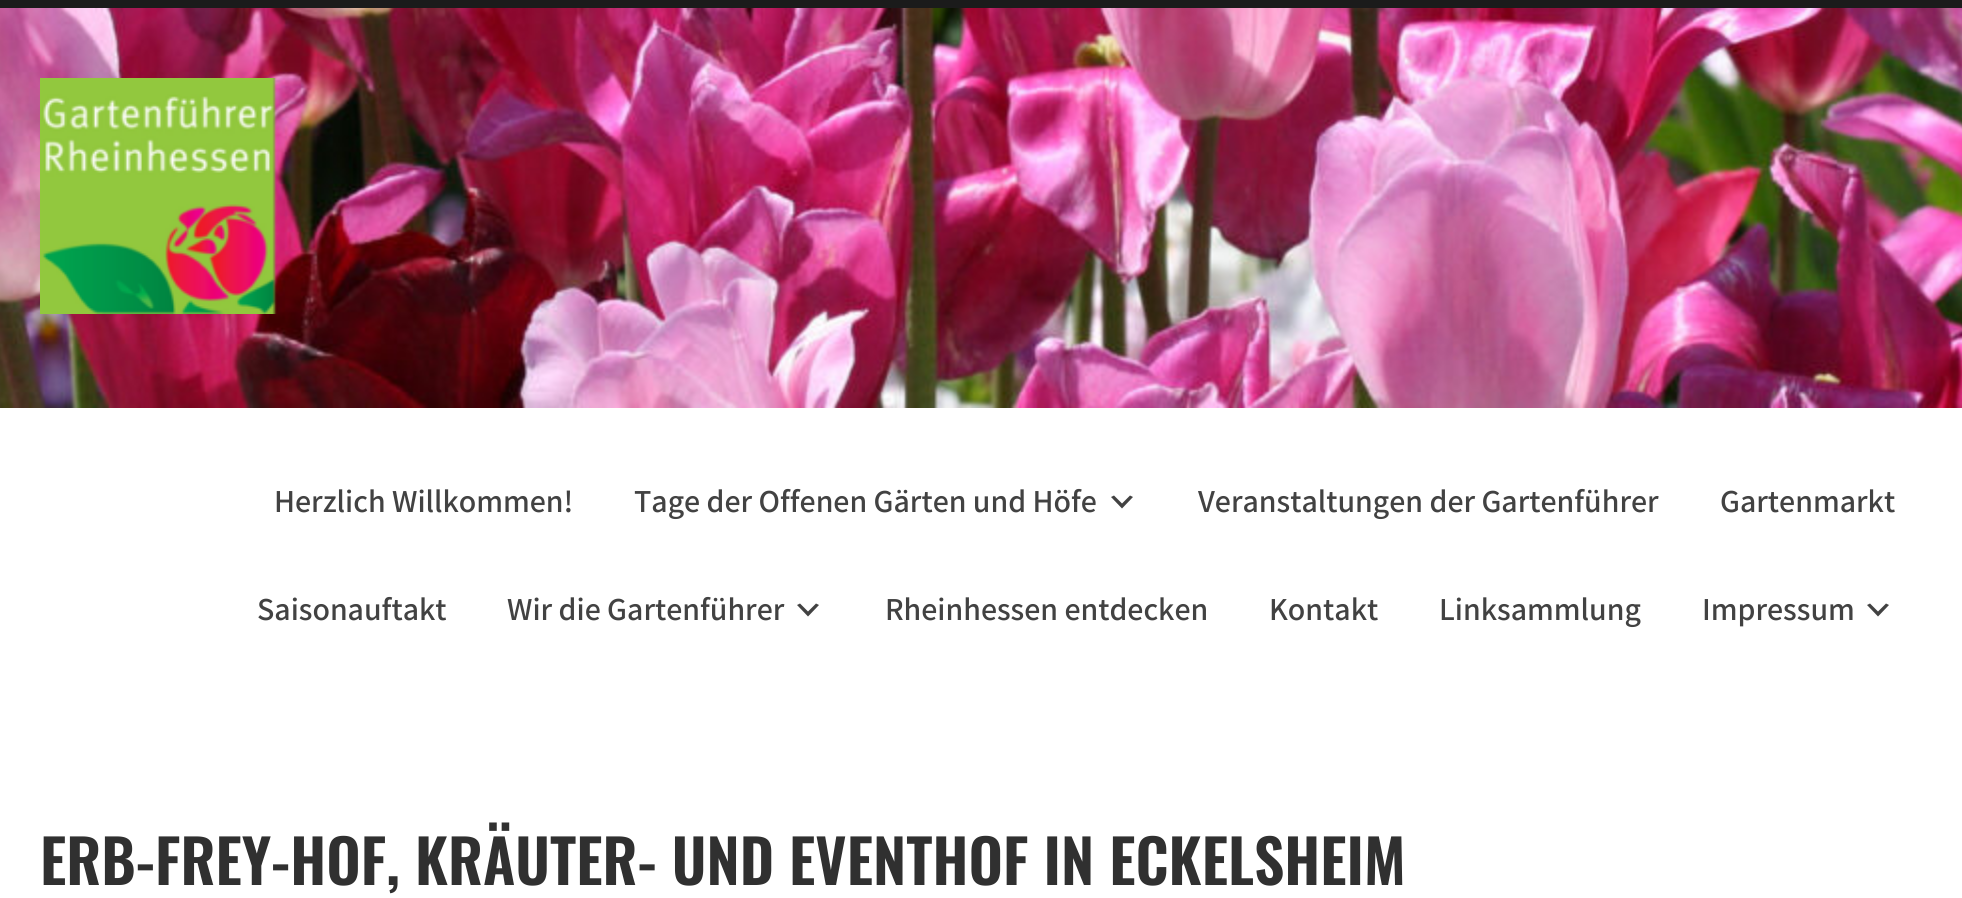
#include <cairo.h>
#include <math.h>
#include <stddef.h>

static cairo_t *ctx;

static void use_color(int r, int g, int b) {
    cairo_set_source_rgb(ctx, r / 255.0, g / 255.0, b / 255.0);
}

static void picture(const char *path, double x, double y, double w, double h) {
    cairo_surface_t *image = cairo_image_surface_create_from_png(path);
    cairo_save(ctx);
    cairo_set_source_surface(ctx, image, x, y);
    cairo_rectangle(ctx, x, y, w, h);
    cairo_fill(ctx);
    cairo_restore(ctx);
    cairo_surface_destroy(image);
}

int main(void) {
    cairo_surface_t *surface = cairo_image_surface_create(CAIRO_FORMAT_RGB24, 1962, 898);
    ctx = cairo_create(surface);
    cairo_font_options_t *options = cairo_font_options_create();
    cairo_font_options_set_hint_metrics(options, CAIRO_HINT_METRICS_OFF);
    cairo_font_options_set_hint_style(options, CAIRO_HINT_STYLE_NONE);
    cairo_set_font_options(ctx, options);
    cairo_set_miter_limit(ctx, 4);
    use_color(255, 255, 255);
    cairo_paint(ctx);
    picture("img1.png", 0, 8, 1962, 400);
    use_color(27, 27, 27);
    cairo_rectangle(ctx, 0, 0, 1962, 8);
    cairo_fill(ctx);
    picture("img2.png", 40, 78, 237, 236);
    cairo_select_font_face(ctx, "Assistant SemiBold", CAIRO_FONT_SLANT_NORMAL, CAIRO_FONT_WEIGHT_NORMAL);
    cairo_set_font_size(ctx, 32);
    use_color(66, 66, 66);
    cairo_move_to(ctx, 274, 512);
    cairo_show_text(ctx, "Herzlich Willkommen!");
    cairo_move_to(ctx, 634, 512);
    cairo_show_text(ctx, "Tage der Offenen Gärten und Höfe");
    cairo_new_path(ctx);
    cairo_move_to(ctx, 1114, 495.5);
    cairo_line_to(ctx, 1122, 503.5);
    cairo_line_to(ctx, 1130, 495.5);
    cairo_line_to(ctx, 1133, 497);
    cairo_line_to(ctx, 1122, 508.5);
    cairo_line_to(ctx, 1111, 497);
    cairo_close_path(ctx);
    cairo_fill(ctx);
    cairo_move_to(ctx, 1198, 512);
    cairo_show_text(ctx, "Veranstaltungen der Gartenführer");
    cairo_move_to(ctx, 1720, 512);
    cairo_show_text(ctx, "Gartenmarkt");
    cairo_move_to(ctx, 257, 620);
    cairo_show_text(ctx, "Saisonauftakt");
    cairo_move_to(ctx, 507, 620);
    cairo_show_text(ctx, "Wir die Gartenführer");
    cairo_new_path(ctx);
    cairo_move_to(ctx, 800, 603.5);
    cairo_line_to(ctx, 808, 611.5);
    cairo_line_to(ctx, 816, 603.5);
    cairo_line_to(ctx, 819, 605);
    cairo_line_to(ctx, 808, 616.5);
    cairo_line_to(ctx, 797, 605);
    cairo_close_path(ctx);
    cairo_fill(ctx);
    cairo_move_to(ctx, 885, 620);
    cairo_show_text(ctx, "Rheinhessen entdecken");
    cairo_move_to(ctx, 1269, 620);
    cairo_show_text(ctx, "Kontakt");
    cairo_move_to(ctx, 1439, 620);
    cairo_show_text(ctx, "Linksammlung");
    cairo_move_to(ctx, 1702, 620);
    cairo_show_text(ctx, "Impressum");
    cairo_new_path(ctx);
    cairo_move_to(ctx, 1870, 603.5);
    cairo_line_to(ctx, 1878, 611.5);
    cairo_line_to(ctx, 1886, 603.5);
    cairo_line_to(ctx, 1889, 605);
    cairo_line_to(ctx, 1878, 616.5);
    cairo_line_to(ctx, 1867, 605);
    cairo_close_path(ctx);
    cairo_fill(ctx);
    cairo_select_font_face(ctx, "Oswald SemiBold", CAIRO_FONT_SLANT_NORMAL, CAIRO_FONT_WEIGHT_NORMAL);
    cairo_set_font_size(ctx, 60);
    use_color(48, 48, 48);
    cairo_move_to(ctx, 40, 885);
    cairo_show_text(ctx, "ERB-FREY-HOF, KRÄUTER- UND EVENTHOF IN ECKELSHEIM");
    cairo_surface_write_to_png(surface, "result.png");
    cairo_font_options_destroy(options);
    cairo_destroy(ctx);
    cairo_surface_destroy(surface);
    return 0;
}
